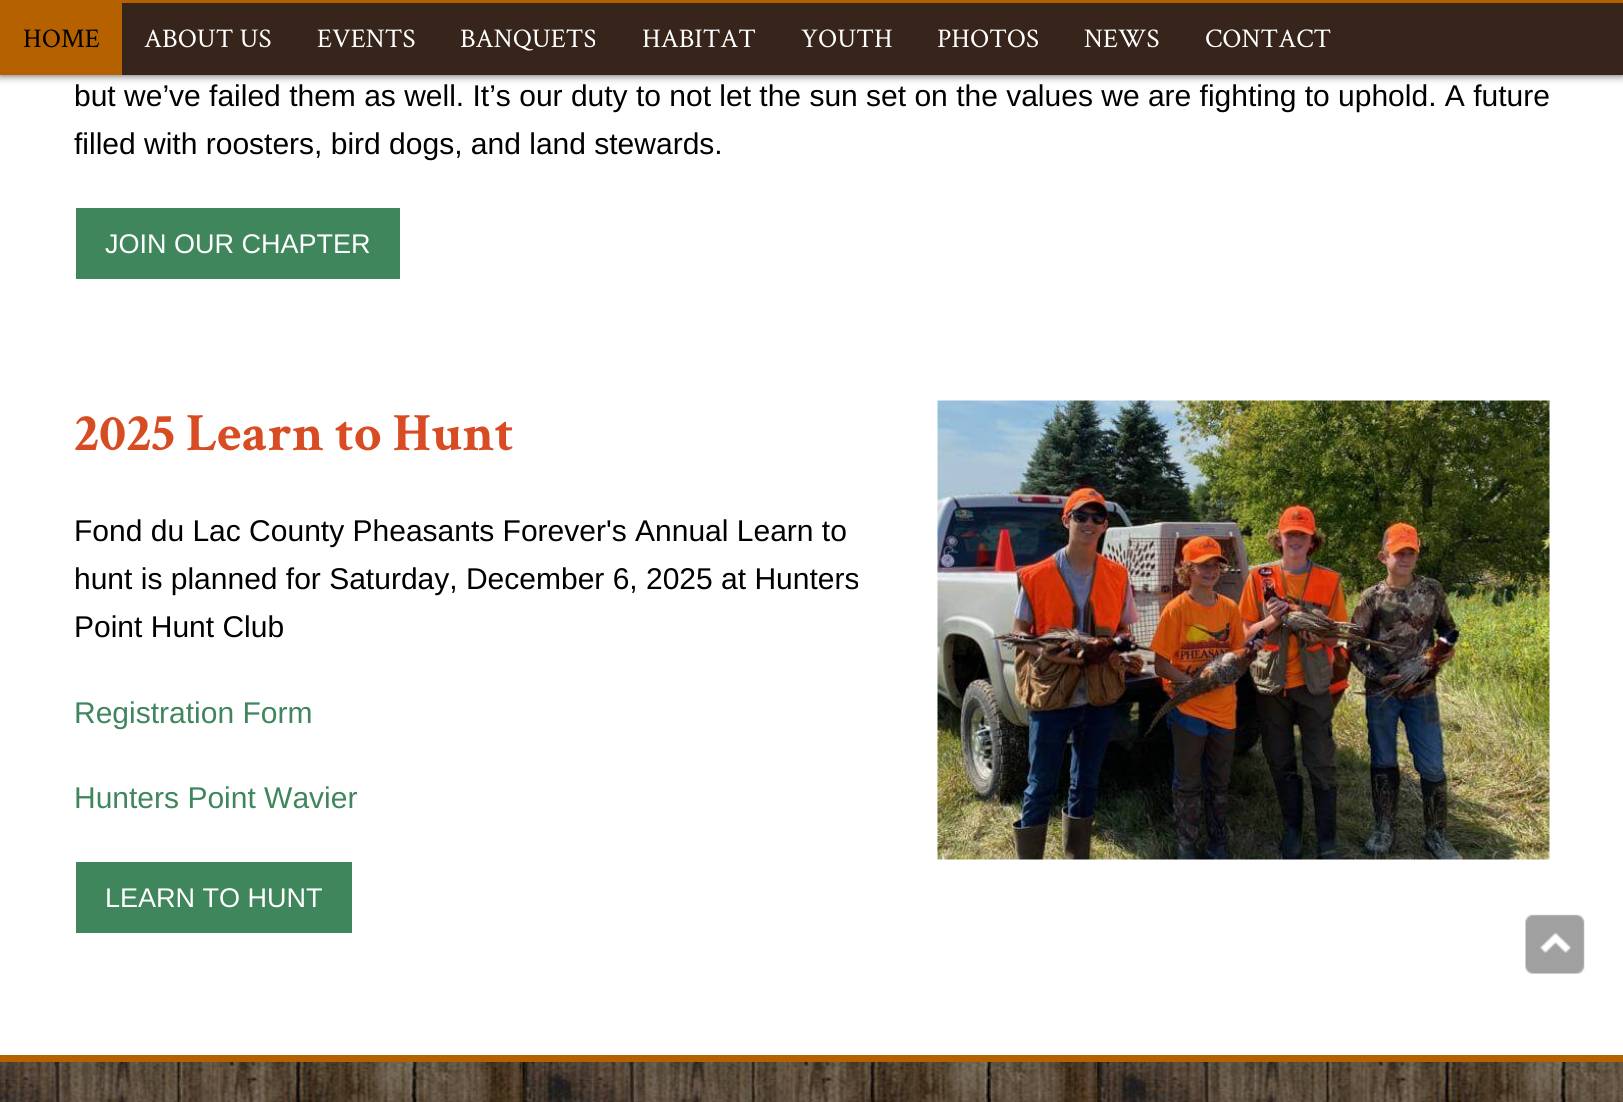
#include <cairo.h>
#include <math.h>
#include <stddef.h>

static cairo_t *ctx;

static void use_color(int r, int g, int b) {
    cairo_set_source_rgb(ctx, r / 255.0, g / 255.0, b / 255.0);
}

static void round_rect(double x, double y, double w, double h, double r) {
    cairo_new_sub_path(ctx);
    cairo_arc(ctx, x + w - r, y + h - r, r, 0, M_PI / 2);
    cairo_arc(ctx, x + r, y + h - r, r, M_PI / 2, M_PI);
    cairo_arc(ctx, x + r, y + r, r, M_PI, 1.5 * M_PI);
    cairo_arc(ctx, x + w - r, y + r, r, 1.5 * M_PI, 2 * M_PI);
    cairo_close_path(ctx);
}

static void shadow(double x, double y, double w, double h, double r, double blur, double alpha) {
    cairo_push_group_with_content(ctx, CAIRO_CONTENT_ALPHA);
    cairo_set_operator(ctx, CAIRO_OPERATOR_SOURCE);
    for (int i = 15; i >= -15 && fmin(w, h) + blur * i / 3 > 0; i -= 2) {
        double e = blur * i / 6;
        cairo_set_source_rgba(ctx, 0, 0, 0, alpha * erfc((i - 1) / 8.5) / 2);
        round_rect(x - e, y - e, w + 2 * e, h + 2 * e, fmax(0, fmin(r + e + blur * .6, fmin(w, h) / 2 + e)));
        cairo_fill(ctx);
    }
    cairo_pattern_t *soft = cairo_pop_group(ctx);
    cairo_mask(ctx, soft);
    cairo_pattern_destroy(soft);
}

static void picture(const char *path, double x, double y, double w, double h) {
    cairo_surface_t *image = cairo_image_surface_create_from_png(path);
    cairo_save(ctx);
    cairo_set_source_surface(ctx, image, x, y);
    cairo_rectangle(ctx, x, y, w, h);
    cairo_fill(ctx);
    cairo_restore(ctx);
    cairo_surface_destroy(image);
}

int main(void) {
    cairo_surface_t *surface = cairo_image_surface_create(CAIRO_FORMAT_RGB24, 1623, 1102);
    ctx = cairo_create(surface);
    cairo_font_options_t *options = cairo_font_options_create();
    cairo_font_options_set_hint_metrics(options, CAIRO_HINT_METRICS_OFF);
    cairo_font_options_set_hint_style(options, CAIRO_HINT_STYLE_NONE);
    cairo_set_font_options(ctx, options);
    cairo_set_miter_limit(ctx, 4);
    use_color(255, 255, 255);
    cairo_paint(ctx);
    picture("img1.png", 0, 1062, 1623, 40);
    use_color(0, 0, 0);
    shadow(0, 0, 1623, 75, 0, 4.5, 0.7);
    use_color(55, 37, 27);
    cairo_rectangle(ctx, 122, 3, 1501, 72);
    cairo_fill(ctx);
    use_color(181, 97, 0);
    cairo_rectangle(ctx, 0, 0, 1623, 3);
    cairo_fill(ctx);
    cairo_rectangle(ctx, 0, 3, 122, 72);
    cairo_fill(ctx);
    cairo_select_font_face(ctx, "Crimson Text", CAIRO_FONT_SLANT_NORMAL, CAIRO_FONT_WEIGHT_NORMAL);
    cairo_set_font_size(ctx, 27);
    use_color(0, 0, 0);
    cairo_move_to(ctx, 23, 47);
    cairo_show_text(ctx, "HOME");
    use_color(255, 255, 255);
    cairo_move_to(ctx, 144, 47);
    cairo_show_text(ctx, "ABOUT US");
    cairo_move_to(ctx, 317, 47);
    cairo_show_text(ctx, "EVENTS");
    cairo_move_to(ctx, 460, 47);
    cairo_show_text(ctx, "BANQUETS");
    cairo_move_to(ctx, 642, 47);
    cairo_show_text(ctx, "HABITAT");
    cairo_move_to(ctx, 801, 47);
    cairo_show_text(ctx, "YOUTH");
    cairo_move_to(ctx, 937, 47);
    cairo_show_text(ctx, "PHOTOS");
    cairo_move_to(ctx, 1084, 47);
    cairo_show_text(ctx, "NEWS");
    cairo_move_to(ctx, 1205, 47);
    cairo_show_text(ctx, "CONTACT");
    cairo_select_font_face(ctx, "Liberation Sans", CAIRO_FONT_SLANT_NORMAL, CAIRO_FONT_WEIGHT_NORMAL);
    cairo_set_font_size(ctx, 30);
    use_color(0, 0, 0);
    cairo_move_to(ctx, 74, 106);
    cairo_show_text(ctx, "but we’ve failed them as well. It’s our duty to not let the sun set on the values we are fighting to uphold. A future");
    cairo_move_to(ctx, 74, 154);
    cairo_show_text(ctx, "filled with roosters, bird dogs, and land stewards.");
    use_color(63, 134, 93);
    cairo_rectangle(ctx, 76, 208, 324, 71);
    cairo_fill(ctx);
    cairo_set_font_size(ctx, 27);
    use_color(255, 255, 255);
    cairo_move_to(ctx, 105, 253);
    cairo_show_text(ctx, "JOIN OUR CHAPTER");
    cairo_select_font_face(ctx, "Crimson Text", CAIRO_FONT_SLANT_NORMAL, CAIRO_FONT_WEIGHT_BOLD);
    cairo_set_font_size(ctx, 54);
    use_color(216, 76, 36);
    cairo_move_to(ctx, 74, 450);
    cairo_show_text(ctx, "2025 Learn to Hunt");
    cairo_select_font_face(ctx, "Liberation Sans", CAIRO_FONT_SLANT_NORMAL, CAIRO_FONT_WEIGHT_NORMAL);
    cairo_set_font_size(ctx, 30);
    use_color(0, 0, 0);
    cairo_move_to(ctx, 74, 541);
    cairo_show_text(ctx, "Fond du Lac County Pheasants Forever's Annual Learn to");
    cairo_move_to(ctx, 74, 589);
    cairo_show_text(ctx, "hunt is planned for Saturday, December 6, 2025 at Hunters");
    cairo_move_to(ctx, 74, 637);
    cairo_show_text(ctx, "Point Hunt Club");
    use_color(63, 134, 93);
    cairo_move_to(ctx, 74, 723);
    cairo_show_text(ctx, "Registration Form");
    cairo_move_to(ctx, 74, 808);
    cairo_show_text(ctx, "Hunters Point Wavier");
    cairo_rectangle(ctx, 76, 862, 276, 71);
    cairo_fill(ctx);
    cairo_set_font_size(ctx, 27);
    use_color(255, 255, 255);
    cairo_move_to(ctx, 105, 907);
    cairo_show_text(ctx, "LEARN TO HUNT");
    picture("img2.png", 937, 400, 613, 460);
    use_color(181, 97, 0);
    cairo_rectangle(ctx, 0, 1055, 1623, 7);
    cairo_fill(ctx);
    picture("img3.png", 1525, 914, 60, 60);
    cairo_surface_write_to_png(surface, "result.png");
    cairo_font_options_destroy(options);
    cairo_destroy(ctx);
    cairo_surface_destroy(surface);
    return 0;
}
